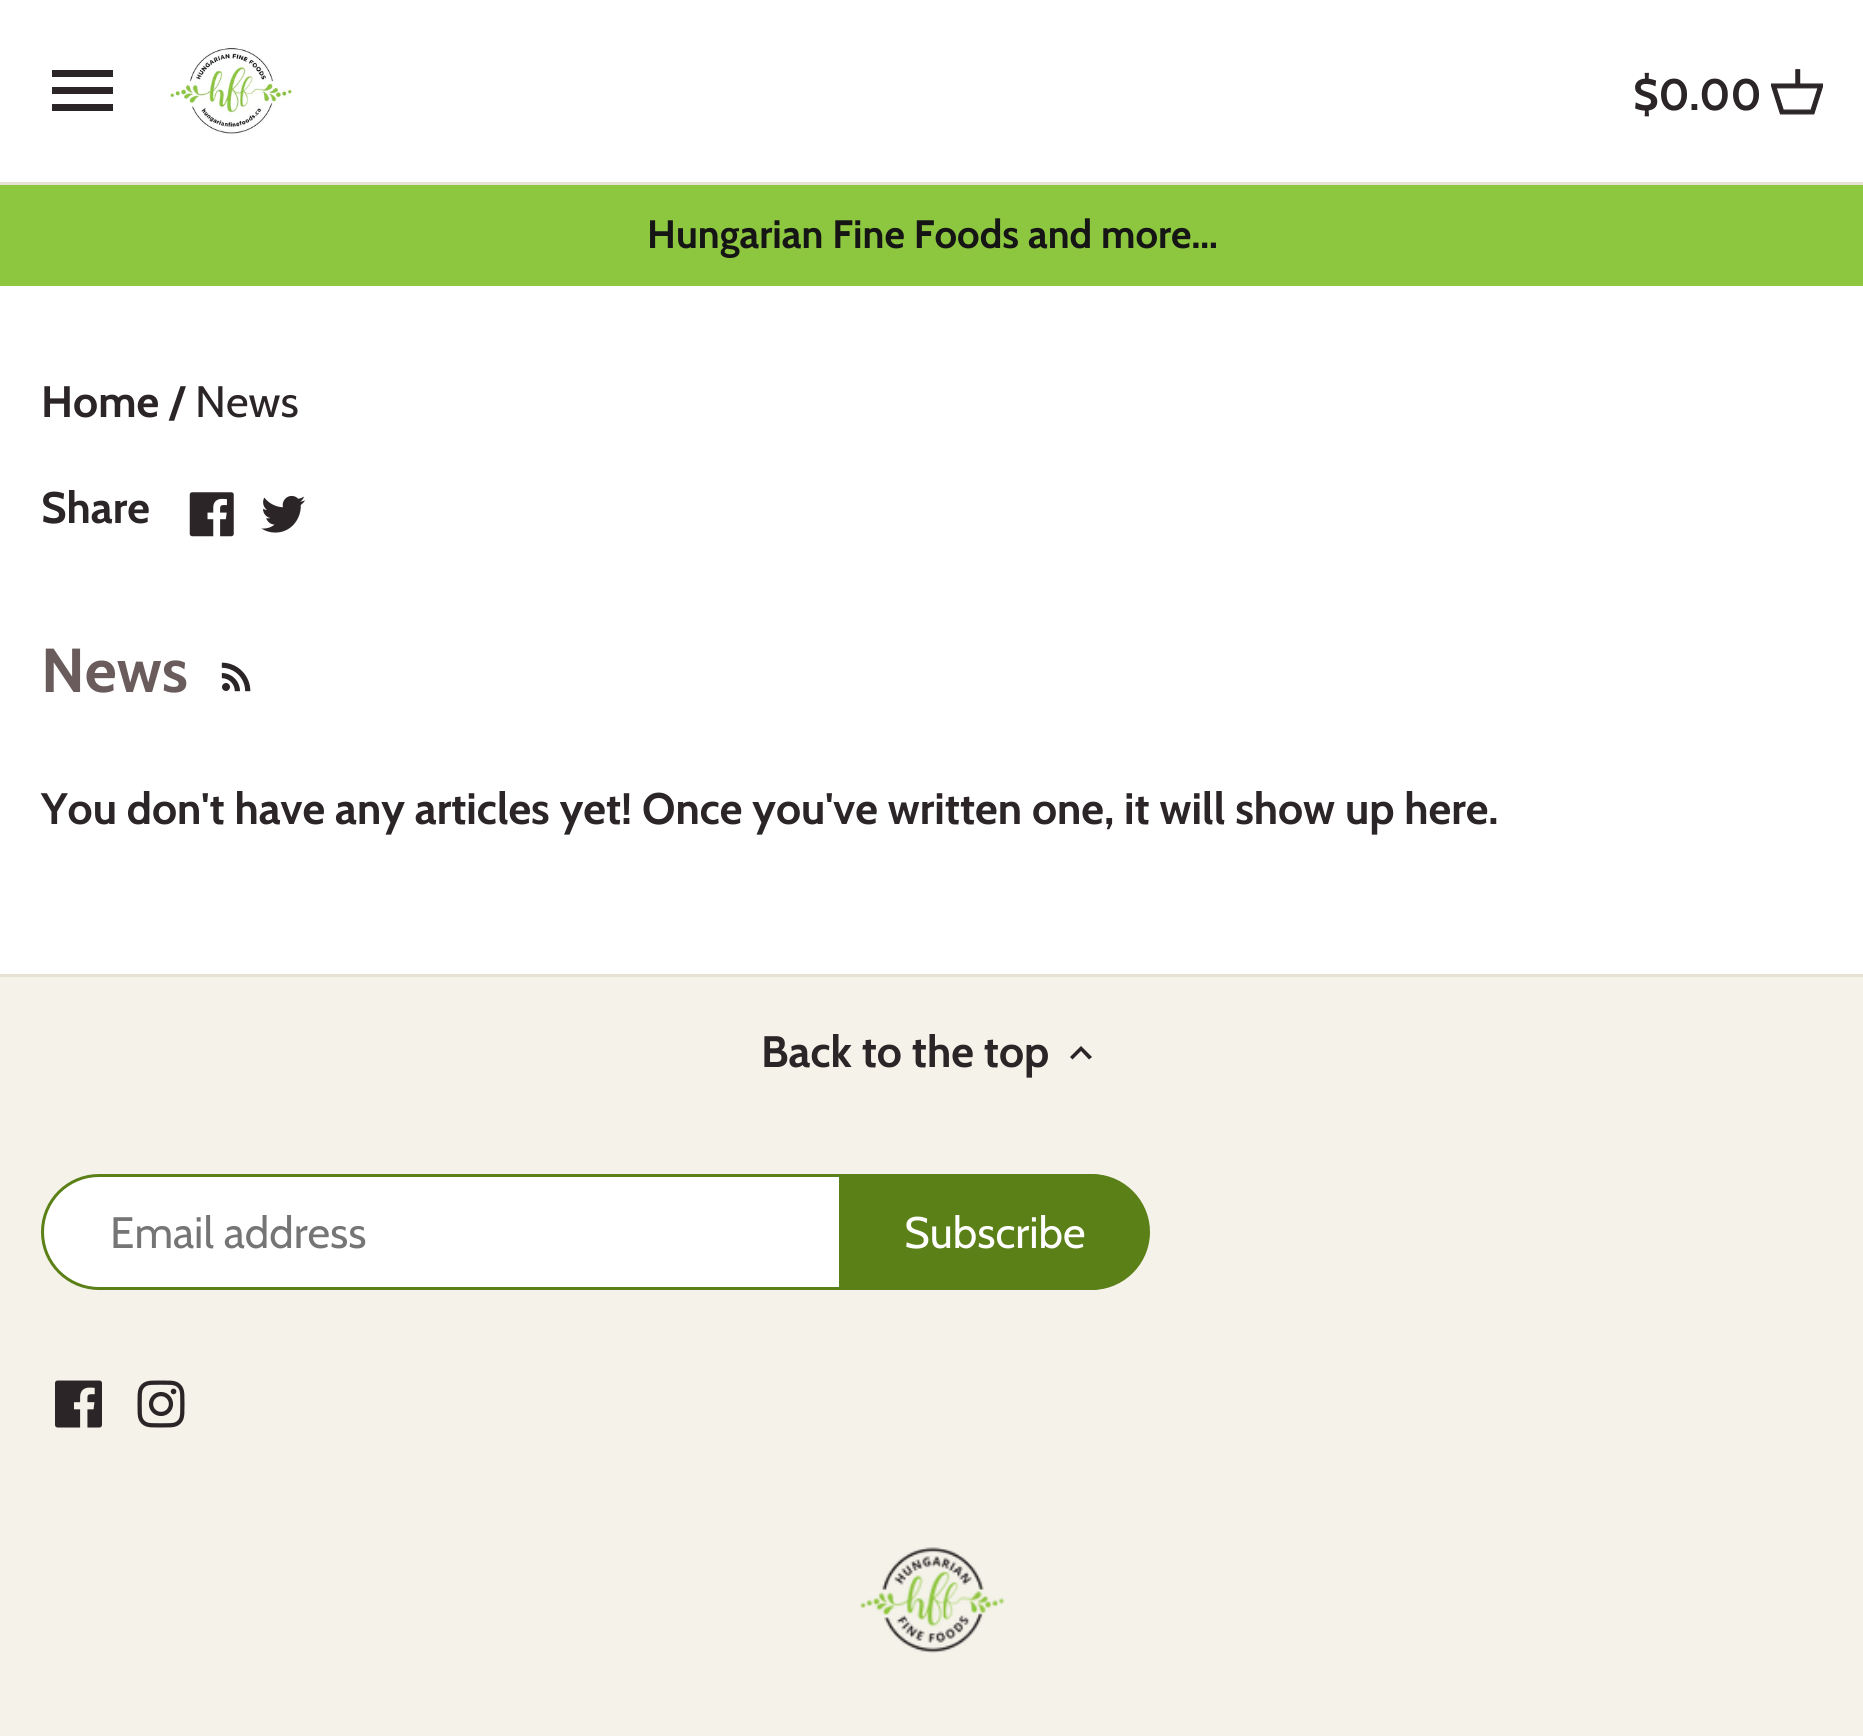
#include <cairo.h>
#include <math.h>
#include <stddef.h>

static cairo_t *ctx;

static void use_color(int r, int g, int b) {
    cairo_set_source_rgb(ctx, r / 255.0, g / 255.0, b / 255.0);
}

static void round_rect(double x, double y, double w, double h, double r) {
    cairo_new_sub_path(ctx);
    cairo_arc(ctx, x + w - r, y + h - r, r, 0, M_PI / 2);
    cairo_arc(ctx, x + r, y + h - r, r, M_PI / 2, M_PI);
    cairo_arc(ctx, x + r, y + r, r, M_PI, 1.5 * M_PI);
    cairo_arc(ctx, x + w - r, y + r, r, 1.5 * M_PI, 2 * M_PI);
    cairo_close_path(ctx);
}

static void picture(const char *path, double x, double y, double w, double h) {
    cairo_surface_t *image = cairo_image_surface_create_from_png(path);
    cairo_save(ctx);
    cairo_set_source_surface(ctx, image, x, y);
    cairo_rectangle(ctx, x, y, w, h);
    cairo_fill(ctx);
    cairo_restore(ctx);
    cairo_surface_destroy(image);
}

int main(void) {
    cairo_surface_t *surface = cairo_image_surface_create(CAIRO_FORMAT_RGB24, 1863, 1736);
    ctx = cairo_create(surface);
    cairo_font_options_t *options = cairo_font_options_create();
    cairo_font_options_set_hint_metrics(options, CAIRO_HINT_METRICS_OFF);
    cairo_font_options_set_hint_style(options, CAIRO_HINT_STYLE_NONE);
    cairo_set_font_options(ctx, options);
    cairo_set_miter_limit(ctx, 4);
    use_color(244, 242, 233);
    cairo_paint(ctx);
    use_color(255, 255, 255);
    cairo_rectangle(ctx, 0, 0, 1863, 974);
    cairo_fill(ctx);
    use_color(229, 226, 212);
    cairo_rectangle(ctx, 0, 182, 1863, 3);
    cairo_fill(ctx);
    use_color(44, 37, 40);
    cairo_new_path(ctx);
    cairo_move_to(ctx, 52, 111);
    cairo_line_to(ctx, 113, 111);
    cairo_line_to(ctx, 113, 104);
    cairo_line_to(ctx, 52, 104);
    cairo_close_path(ctx);
    cairo_move_to(ctx, 52, 94);
    cairo_line_to(ctx, 113, 94);
    cairo_line_to(ctx, 113, 87);
    cairo_line_to(ctx, 52, 87);
    cairo_close_path(ctx);
    cairo_move_to(ctx, 52, 70);
    cairo_line_to(ctx, 52, 77);
    cairo_line_to(ctx, 113, 77);
    cairo_line_to(ctx, 113, 70);
    cairo_close_path(ctx);
    cairo_fill(ctx);
    picture("img1.png", 170, 47, 122, 88);
    cairo_select_font_face(ctx, "Cabin", CAIRO_FONT_SLANT_NORMAL, CAIRO_FONT_WEIGHT_BOLD);
    cairo_set_font_size(ctx, 44);
    cairo_move_to(ctx, 1633, 110);
    cairo_show_text(ctx, "$0.00");
    picture("img2.png", 1771, 69, 52, 46);
    use_color(141, 198, 63);
    cairo_rectangle(ctx, 0, 185, 1863, 101);
    cairo_fill(ctx);
    cairo_set_font_size(ctx, 39.6);
    use_color(22, 21, 22);
    cairo_move_to(ctx, 647, 248);
    cairo_show_text(ctx, "Hungarian Fine Foods and more...");
    cairo_set_font_size(ctx, 44);
    use_color(44, 37, 40);
    cairo_move_to(ctx, 41, 417);
    cairo_show_text(ctx, "Home /");
    cairo_select_font_face(ctx, "Cabin", CAIRO_FONT_SLANT_NORMAL, CAIRO_FONT_WEIGHT_NORMAL);
    cairo_move_to(ctx, 195, 417);
    cairo_show_text(ctx, "News");
    cairo_select_font_face(ctx, "Cabin", CAIRO_FONT_SLANT_NORMAL, CAIRO_FONT_WEIGHT_BOLD);
    cairo_move_to(ctx, 41, 523);
    cairo_show_text(ctx, "Share");
    picture("img3.png", 189, 492, 45, 45);
    picture("img4.png", 261, 495, 45, 38);
    cairo_set_font_size(ctx, 62);
    use_color(106, 91, 92);
    cairo_move_to(ctx, 41, 692);
    cairo_show_text(ctx, "News");
    picture("img5.png", 221, 662, 30, 30);
    cairo_set_font_size(ctx, 44);
    use_color(44, 37, 40);
    cairo_move_to(ctx, 41, 824);
    cairo_show_text(ctx, "You don't have any articles yet! Once you've written one, it will show up here.");
    use_color(229, 226, 212);
    cairo_rectangle(ctx, 0, 974, 1863, 3);
    cairo_fill(ctx);
    use_color(44, 37, 40);
    cairo_move_to(ctx, 761, 1067);
    cairo_show_text(ctx, "Back to the top");
    cairo_new_path(ctx);
    cairo_move_to(ctx, 1072.5, 1059.5);
    cairo_line_to(ctx, 1081, 1051);
    cairo_line_to(ctx, 1089, 1059.5);
    cairo_line_to(ctx, 1092, 1057);
    cairo_line_to(ctx, 1081, 1046);
    cairo_line_to(ctx, 1070, 1057);
    cairo_close_path(ctx);
    cairo_fill(ctx);
    use_color(255, 255, 255);
    round_rect(42.5, 1175.5, 1103, 113, 56.5);
    cairo_fill_preserve(ctx);
    use_color(92, 128, 24);
    cairo_set_line_width(ctx, 3);
    cairo_stroke(ctx);
    cairo_select_font_face(ctx, "Cabin", CAIRO_FONT_SLANT_NORMAL, CAIRO_FONT_WEIGHT_NORMAL);
    use_color(117, 117, 117);
    cairo_move_to(ctx, 110, 1248);
    cairo_show_text(ctx, "Email address");
    use_color(92, 128, 24);
    cairo_new_path(ctx);
    cairo_move_to(ctx, 840.5, 1175.5);
    cairo_line_to(ctx, 1092, 1175.5);
    cairo_curve_to(ctx, 1123, 1175.5, 1148.5, 1201, 1148.5, 1232);
    cairo_curve_to(ctx, 1148.5, 1263, 1123, 1288.5, 1092, 1288.5);
    cairo_line_to(ctx, 840.5, 1288.5);
    cairo_close_path(ctx);
    cairo_fill_preserve(ctx);
    cairo_stroke(ctx);
    use_color(255, 255, 255);
    cairo_move_to(ctx, 904, 1248);
    cairo_show_text(ctx, "Subscribe");
    picture("img6.png", 55, 1380, 47, 48);
    picture("img7.png", 137, 1380, 48, 48);
    picture("img8.png", 860, 1547, 145, 106);
    cairo_surface_write_to_png(surface, "result.png");
    cairo_font_options_destroy(options);
    cairo_destroy(ctx);
    cairo_surface_destroy(surface);
    return 0;
}
